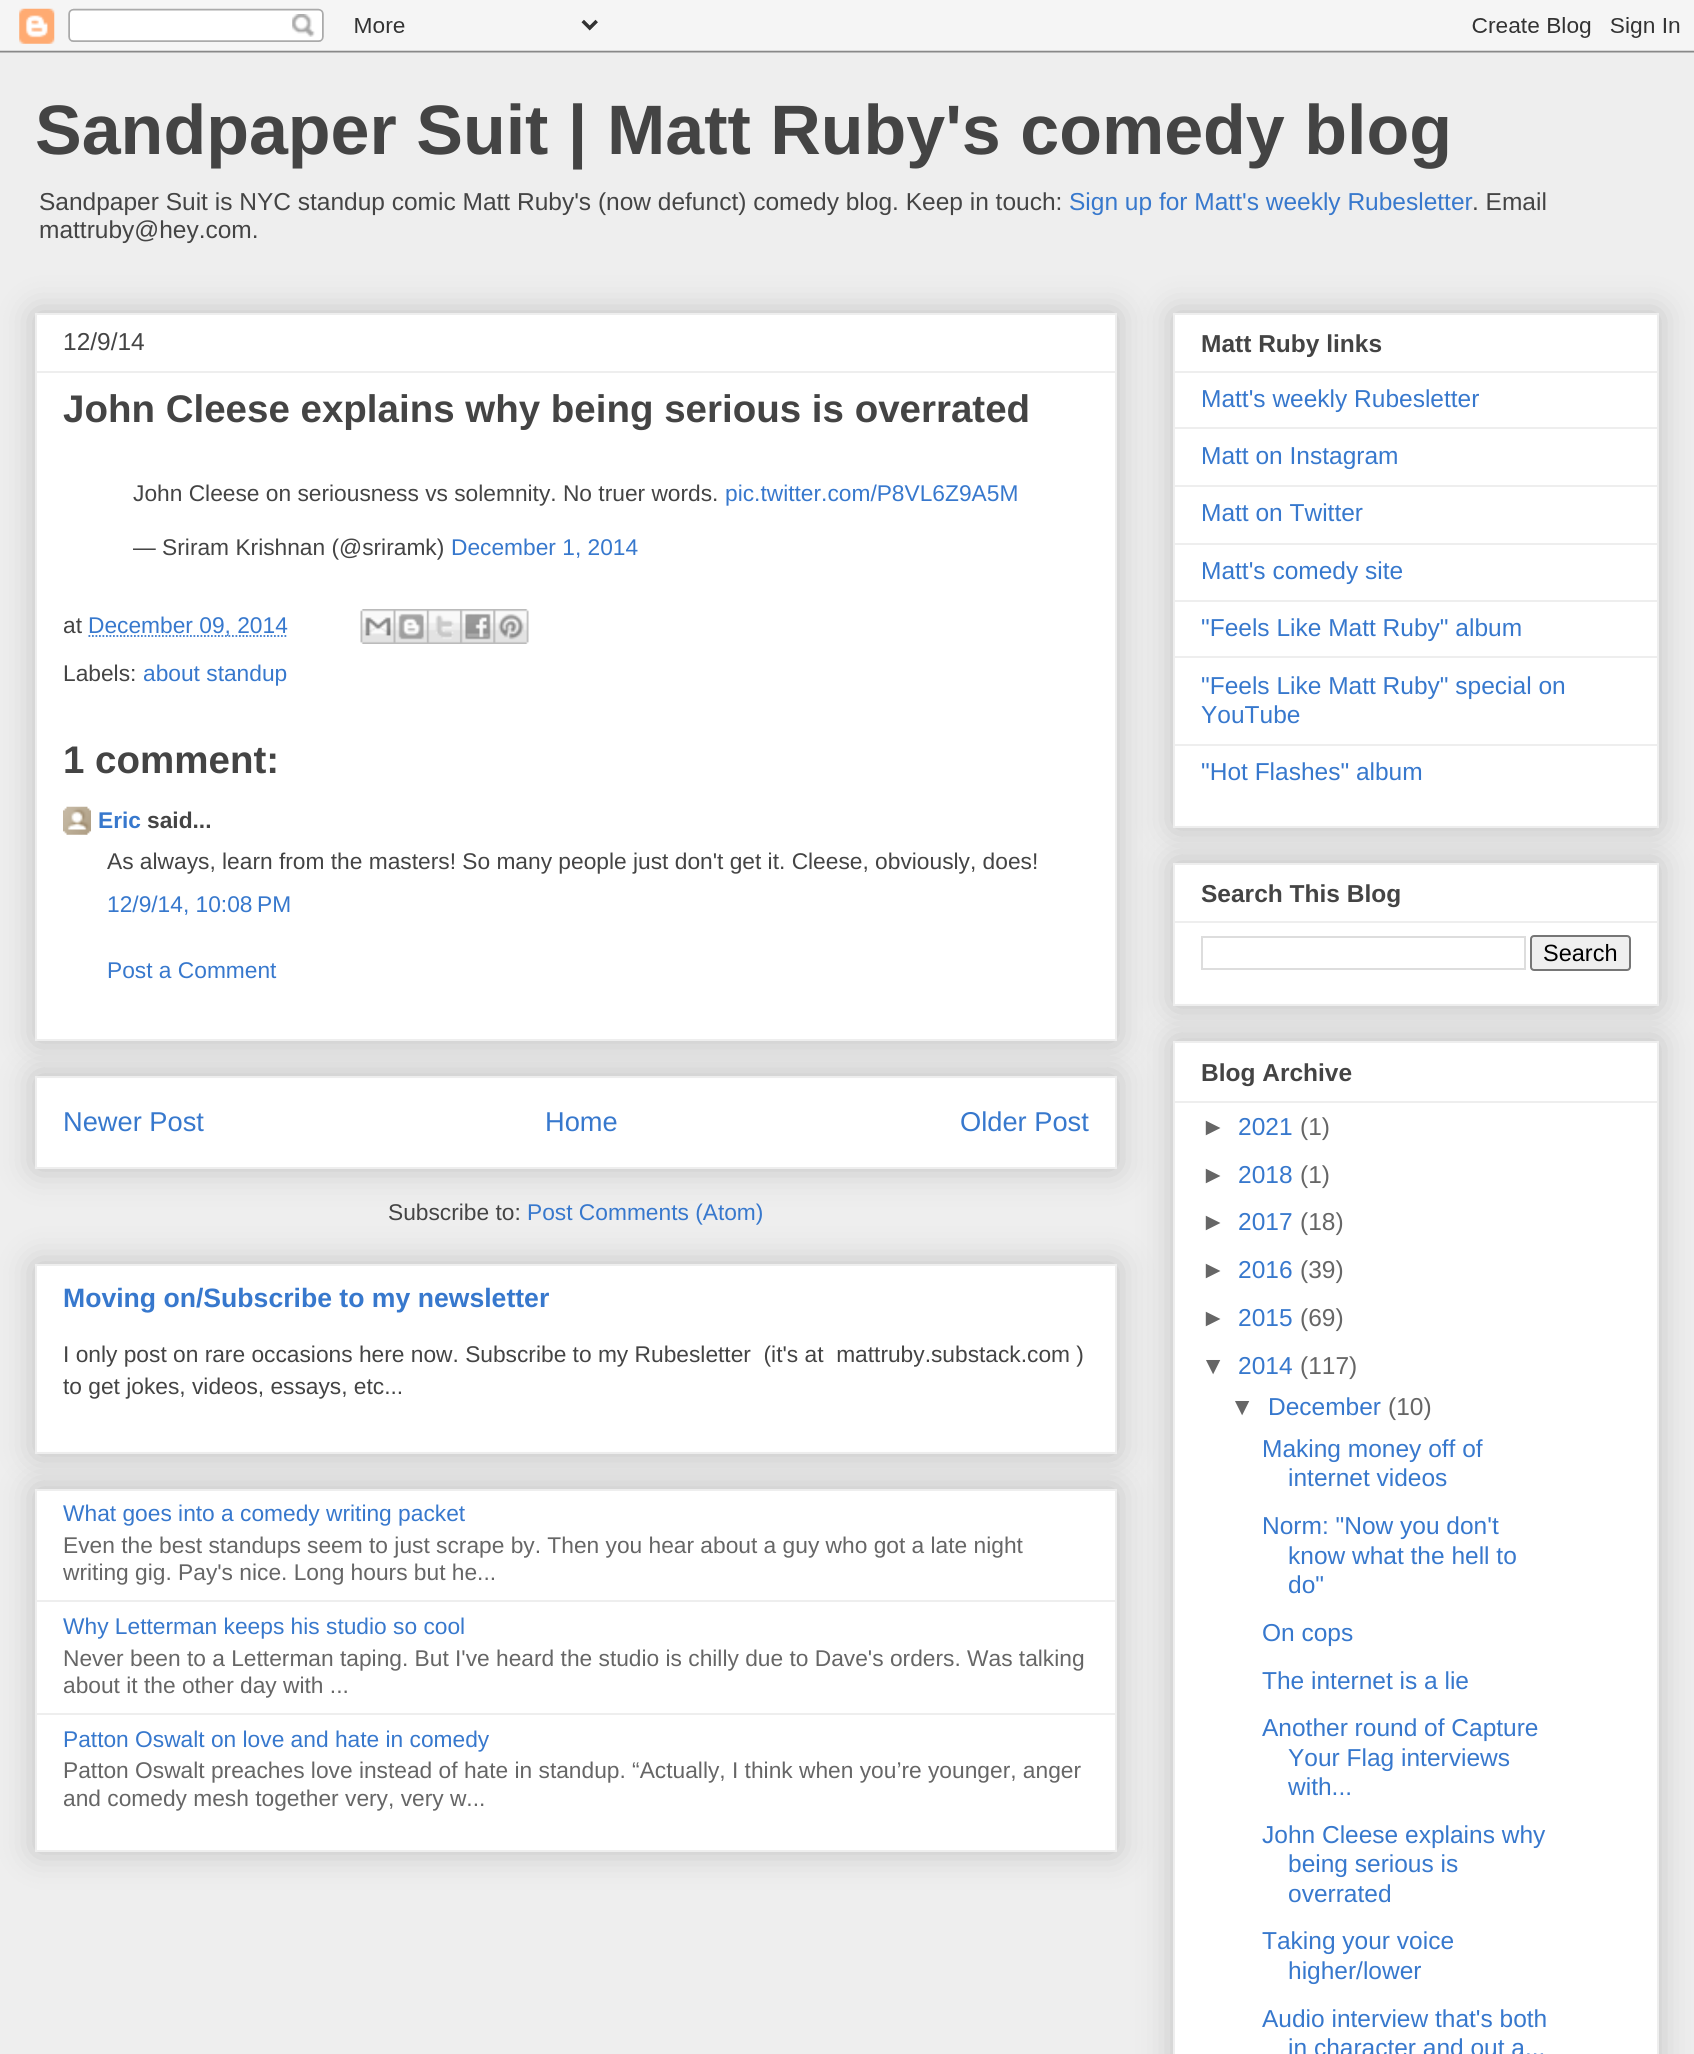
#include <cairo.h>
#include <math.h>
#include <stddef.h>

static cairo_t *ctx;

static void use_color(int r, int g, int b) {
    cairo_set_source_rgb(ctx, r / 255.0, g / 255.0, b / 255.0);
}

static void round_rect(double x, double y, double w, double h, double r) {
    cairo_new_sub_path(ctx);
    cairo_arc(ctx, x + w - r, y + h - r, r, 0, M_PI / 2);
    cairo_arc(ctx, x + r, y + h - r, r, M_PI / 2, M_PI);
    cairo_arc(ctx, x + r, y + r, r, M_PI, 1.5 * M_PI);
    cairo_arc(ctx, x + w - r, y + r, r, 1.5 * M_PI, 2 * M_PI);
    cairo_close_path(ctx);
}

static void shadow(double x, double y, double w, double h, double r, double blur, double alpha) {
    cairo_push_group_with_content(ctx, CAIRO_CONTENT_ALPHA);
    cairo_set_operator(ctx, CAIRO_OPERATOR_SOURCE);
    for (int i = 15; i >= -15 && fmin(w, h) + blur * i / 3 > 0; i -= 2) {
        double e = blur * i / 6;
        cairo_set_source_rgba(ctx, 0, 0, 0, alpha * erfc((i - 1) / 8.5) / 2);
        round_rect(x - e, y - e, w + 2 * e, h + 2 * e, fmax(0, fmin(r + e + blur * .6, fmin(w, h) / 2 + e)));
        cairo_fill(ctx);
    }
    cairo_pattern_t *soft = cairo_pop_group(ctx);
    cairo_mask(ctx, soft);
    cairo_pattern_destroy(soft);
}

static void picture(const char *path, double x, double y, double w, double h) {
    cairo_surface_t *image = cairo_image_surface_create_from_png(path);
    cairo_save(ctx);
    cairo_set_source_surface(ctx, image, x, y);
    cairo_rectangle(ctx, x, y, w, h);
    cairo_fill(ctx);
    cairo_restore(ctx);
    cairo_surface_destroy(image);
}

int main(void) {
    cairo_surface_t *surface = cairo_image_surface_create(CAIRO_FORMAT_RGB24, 1694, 2054);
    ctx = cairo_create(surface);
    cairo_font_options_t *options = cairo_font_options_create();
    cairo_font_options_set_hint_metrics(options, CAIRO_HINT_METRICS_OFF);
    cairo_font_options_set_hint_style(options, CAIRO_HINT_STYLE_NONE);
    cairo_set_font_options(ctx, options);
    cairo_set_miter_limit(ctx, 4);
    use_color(238, 238, 238);
    cairo_paint(ctx);
    picture("img1.png", 0, 0, 1694, 53);
    cairo_select_font_face(ctx, "Liberation Sans", CAIRO_FONT_SLANT_NORMAL, CAIRO_FONT_WEIGHT_BOLD);
    cairo_set_font_size(ctx, 70);
    use_color(68, 68, 68);
    cairo_move_to(ctx, 35, 154);
    cairo_show_text(ctx, "Sandpaper Suit | Matt Ruby's comedy blog");
    cairo_select_font_face(ctx, "Liberation Sans", CAIRO_FONT_SLANT_NORMAL, CAIRO_FONT_WEIGHT_NORMAL);
    cairo_set_font_size(ctx, 24.5);
    cairo_move_to(ctx, 39, 210);
    cairo_show_text(ctx, "Sandpaper Suit is NYC standup comic Matt Ruby's (now defunct) comedy blog. Keep in touch:");
    use_color(55, 120, 205);
    cairo_move_to(ctx, 1069, 210);
    cairo_show_text(ctx, "Sign up for Matt's weekly Rubesletter");
    use_color(68, 68, 68);
    cairo_move_to(ctx, 1472, 210);
    cairo_show_text(ctx, ". Email");
    cairo_move_to(ctx, 39, 238);
    cairo_show_text(ctx, "mattruby@hey.com.");
    use_color(0, 0, 0);
    shadow(35, 1076, 1082, 93, 0, 17.5, 0.2);
    use_color(255, 255, 255);
    cairo_rectangle(ctx, 36, 1077, 1080, 91);
    cairo_fill_preserve(ctx);
    use_color(238, 238, 238);
    cairo_stroke(ctx);
    use_color(0, 0, 0);
    shadow(35, 313, 1082, 728, 0, 17.5, 0.2);
    use_color(255, 255, 255);
    cairo_rectangle(ctx, 36, 314, 1080, 726);
    cairo_fill_preserve(ctx);
    use_color(238, 238, 238);
    cairo_stroke(ctx);
    use_color(68, 68, 68);
    cairo_move_to(ctx, 63, 350);
    cairo_show_text(ctx, "12/9/14");
    use_color(238, 238, 238);
    cairo_rectangle(ctx, 37, 371, 1078, 2);
    cairo_fill(ctx);
    cairo_select_font_face(ctx, "Liberation Sans", CAIRO_FONT_SLANT_NORMAL, CAIRO_FONT_WEIGHT_BOLD);
    cairo_set_font_size(ctx, 38.5);
    use_color(68, 68, 68);
    cairo_move_to(ctx, 63, 422);
    cairo_show_text(ctx, "John Cleese explains why being serious is overrated");
    cairo_select_font_face(ctx, "Liberation Sans", CAIRO_FONT_SLANT_NORMAL, CAIRO_FONT_WEIGHT_NORMAL);
    cairo_set_font_size(ctx, 22.75);
    cairo_move_to(ctx, 133, 501);
    cairo_show_text(ctx, "John Cleese on seriousness vs solemnity. No truer words.");
    use_color(55, 120, 205);
    cairo_move_to(ctx, 725, 501);
    cairo_show_text(ctx, "pic.twitter.com/P8VL6Z9A5M");
    use_color(68, 68, 68);
    cairo_move_to(ctx, 133, 555);
    cairo_show_text(ctx, "— Sriram Krishnan (@sriramk)");
    use_color(55, 120, 205);
    cairo_move_to(ctx, 451, 555);
    cairo_show_text(ctx, "December 1, 2014");
    use_color(68, 68, 68);
    cairo_move_to(ctx, 63, 633);
    cairo_show_text(ctx, "at");
    cairo_new_path(ctx);
    cairo_move_to(ctx, 88.5, 636);
    cairo_line_to(ctx, 288, 636);
    use_color(55, 120, 205);
    cairo_set_line_width(ctx, 1.8);
    cairo_set_dash(ctx, (double[]){1.75, 1.75}, 2, 0);
    cairo_stroke(ctx);
    cairo_move_to(ctx, 88, 633);
    cairo_show_text(ctx, "December 09, 2014");
    picture("img2.png", 360, 609, 34, 35);
    picture("img3.png", 393, 609, 34, 35);
    picture("img4.png", 427, 609, 34, 35);
    picture("img5.png", 460, 609, 34, 35);
    picture("img6.png", 493, 609, 36, 35);
    use_color(68, 68, 68);
    cairo_move_to(ctx, 63, 681);
    cairo_show_text(ctx, "Labels:");
    use_color(55, 120, 205);
    cairo_move_to(ctx, 143, 681);
    cairo_show_text(ctx, "about standup");
    cairo_select_font_face(ctx, "Liberation Sans", CAIRO_FONT_SLANT_NORMAL, CAIRO_FONT_WEIGHT_BOLD);
    cairo_set_font_size(ctx, 38.5);
    use_color(68, 68, 68);
    cairo_move_to(ctx, 63, 773);
    cairo_show_text(ctx, "1 comment:");
    picture("img7.png", 63, 806, 28, 29);
    cairo_set_font_size(ctx, 22.75);
    use_color(55, 120, 205);
    cairo_move_to(ctx, 98, 828);
    cairo_show_text(ctx, "Eric");
    use_color(68, 68, 68);
    cairo_move_to(ctx, 147, 828);
    cairo_show_text(ctx, "said...");
    cairo_select_font_face(ctx, "Liberation Sans", CAIRO_FONT_SLANT_NORMAL, CAIRO_FONT_WEIGHT_NORMAL);
    cairo_move_to(ctx, 107, 869);
    cairo_show_text(ctx, "As always, learn from the masters! So many people just don't get it. Cleese, obviously, does!");
    use_color(55, 120, 205);
    cairo_move_to(ctx, 107, 912);
    cairo_show_text(ctx, "12/9/14, 10:08 PM");
    cairo_move_to(ctx, 107, 978);
    cairo_show_text(ctx, "Post a Comment");
    cairo_set_font_size(ctx, 27.25);
    cairo_move_to(ctx, 63, 1131);
    cairo_show_text(ctx, "Newer Post");
    cairo_move_to(ctx, 545, 1131);
    cairo_show_text(ctx, "Home");
    cairo_move_to(ctx, 960, 1131);
    cairo_show_text(ctx, "Older Post");
    cairo_set_font_size(ctx, 22.75);
    use_color(68, 68, 68);
    cairo_move_to(ctx, 388, 1220);
    cairo_show_text(ctx, "Subscribe to:");
    use_color(55, 120, 205);
    cairo_move_to(ctx, 527, 1220);
    cairo_show_text(ctx, "Post Comments (Atom)");
    use_color(0, 0, 0);
    shadow(35, 1264, 1082, 190, 0, 17.5, 0.2);
    use_color(255, 255, 255);
    cairo_rectangle(ctx, 36, 1265, 1080, 188);
    cairo_fill_preserve(ctx);
    use_color(238, 238, 238);
    cairo_set_line_width(ctx, 2);
    cairo_set_dash(ctx, NULL, 0, 0);
    cairo_stroke(ctx);
    cairo_select_font_face(ctx, "Liberation Sans", CAIRO_FONT_SLANT_NORMAL, CAIRO_FONT_WEIGHT_BOLD);
    cairo_set_font_size(ctx, 26.6);
    use_color(55, 120, 205);
    cairo_move_to(ctx, 63, 1307);
    cairo_show_text(ctx, "Moving on/Subscribe to my newsletter");
    cairo_select_font_face(ctx, "Liberation Sans", CAIRO_FONT_SLANT_NORMAL, CAIRO_FONT_WEIGHT_NORMAL);
    cairo_set_font_size(ctx, 22.75);
    use_color(68, 68, 68);
    cairo_move_to(ctx, 63, 1362);
    cairo_show_text(ctx, "I only post on rare occasions here now. Subscribe to my Rubesletter  (it's at  mattruby.substack.com )");
    cairo_move_to(ctx, 63, 1394);
    cairo_show_text(ctx, "to get jokes, videos, essays, etc...");
    use_color(0, 0, 0);
    shadow(35, 1489, 1082, 363, 0, 17.5, 0.2);
    use_color(255, 255, 255);
    cairo_rectangle(ctx, 36, 1490, 1080, 361);
    cairo_fill_preserve(ctx);
    use_color(238, 238, 238);
    cairo_stroke(ctx);
    use_color(55, 120, 205);
    cairo_move_to(ctx, 63, 1521);
    cairo_show_text(ctx, "What goes into a comedy writing packet");
    use_color(102, 102, 102);
    cairo_move_to(ctx, 63, 1553);
    cairo_show_text(ctx, "Even the best standups seem to just scrape by. Then you hear about a guy who got a late night");
    cairo_move_to(ctx, 63, 1580);
    cairo_show_text(ctx, "writing gig. Pay's nice. Long hours but he...");
    use_color(238, 238, 238);
    cairo_rectangle(ctx, 37, 1600, 1078, 2);
    cairo_fill(ctx);
    use_color(55, 120, 205);
    cairo_move_to(ctx, 63, 1634);
    cairo_show_text(ctx, "Why Letterman keeps his studio so cool");
    use_color(102, 102, 102);
    cairo_move_to(ctx, 63, 1666);
    cairo_show_text(ctx, "Never been to a Letterman taping. But I've heard the studio is chilly due to Dave's orders. Was talking");
    cairo_move_to(ctx, 63, 1693);
    cairo_show_text(ctx, "about it the other day with ...");
    use_color(238, 238, 238);
    cairo_rectangle(ctx, 37, 1713, 1078, 2);
    cairo_fill(ctx);
    use_color(55, 120, 205);
    cairo_move_to(ctx, 63, 1747);
    cairo_show_text(ctx, "Patton Oswalt on love and hate in comedy");
    use_color(102, 102, 102);
    cairo_move_to(ctx, 63, 1778);
    cairo_show_text(ctx, "Patton Oswalt preaches love instead of hate in standup. “Actually, I think when you’re younger, anger");
    cairo_move_to(ctx, 63, 1806);
    cairo_show_text(ctx, "and comedy mesh together very, very w...");
    use_color(0, 0, 0);
    shadow(1173, 313, 486, 515, 0, 17.5, 0.2);
    use_color(255, 255, 255);
    cairo_rectangle(ctx, 1174, 314, 484, 513);
    cairo_fill_preserve(ctx);
    use_color(238, 238, 238);
    cairo_stroke(ctx);
    cairo_select_font_face(ctx, "Liberation Sans", CAIRO_FONT_SLANT_NORMAL, CAIRO_FONT_WEIGHT_BOLD);
    cairo_set_font_size(ctx, 24.5);
    use_color(68, 68, 68);
    cairo_move_to(ctx, 1201, 352);
    cairo_show_text(ctx, "Matt Ruby links");
    use_color(238, 238, 238);
    cairo_rectangle(ctx, 1174, 371, 483, 2);
    cairo_fill(ctx);
    cairo_select_font_face(ctx, "Liberation Sans", CAIRO_FONT_SLANT_NORMAL, CAIRO_FONT_WEIGHT_NORMAL);
    use_color(55, 120, 205);
    cairo_move_to(ctx, 1201, 407);
    cairo_show_text(ctx, "Matt's weekly Rubesletter");
    use_color(238, 238, 238);
    cairo_rectangle(ctx, 1174, 427, 483, 2);
    cairo_fill(ctx);
    use_color(55, 120, 205);
    cairo_move_to(ctx, 1201, 464);
    cairo_show_text(ctx, "Matt on Instagram");
    use_color(238, 238, 238);
    cairo_rectangle(ctx, 1174, 485, 483, 2);
    cairo_fill(ctx);
    use_color(55, 120, 205);
    cairo_move_to(ctx, 1201, 521);
    cairo_show_text(ctx, "Matt on Twitter");
    use_color(238, 238, 238);
    cairo_rectangle(ctx, 1174, 543, 483, 2);
    cairo_fill(ctx);
    use_color(55, 120, 205);
    cairo_move_to(ctx, 1201, 579);
    cairo_show_text(ctx, "Matt's comedy site");
    use_color(238, 238, 238);
    cairo_rectangle(ctx, 1174, 600, 483, 2);
    cairo_fill(ctx);
    use_color(55, 120, 205);
    cairo_move_to(ctx, 1201, 636);
    cairo_show_text(ctx, "\"Feels Like Matt Ruby\" album");
    use_color(238, 238, 238);
    cairo_rectangle(ctx, 1174, 656, 483, 2);
    cairo_fill(ctx);
    use_color(55, 120, 205);
    cairo_move_to(ctx, 1201, 694);
    cairo_show_text(ctx, "\"Feels Like Matt Ruby\" special on");
    cairo_move_to(ctx, 1201, 723);
    cairo_show_text(ctx, "YouTube");
    use_color(238, 238, 238);
    cairo_rectangle(ctx, 1174, 744, 483, 2);
    cairo_fill(ctx);
    use_color(55, 120, 205);
    cairo_move_to(ctx, 1201, 780);
    cairo_show_text(ctx, "\"Hot Flashes\" album");
    use_color(0, 0, 0);
    shadow(1173, 863, 486, 143, 0, 17.5, 0.2);
    use_color(255, 255, 255);
    cairo_rectangle(ctx, 1174, 864, 484, 141);
    cairo_fill_preserve(ctx);
    use_color(238, 238, 238);
    cairo_stroke(ctx);
    cairo_select_font_face(ctx, "Liberation Sans", CAIRO_FONT_SLANT_NORMAL, CAIRO_FONT_WEIGHT_BOLD);
    use_color(68, 68, 68);
    cairo_move_to(ctx, 1201, 902);
    cairo_show_text(ctx, "Search This Blog");
    use_color(238, 238, 238);
    cairo_rectangle(ctx, 1174, 921, 483, 2);
    cairo_fill(ctx);
    cairo_rectangle(ctx, 1202, 937, 323, 32);
    use_color(221, 221, 221);
    cairo_stroke(ctx);
    use_color(239, 239, 239);
    round_rect(1531, 936, 99, 34, 3);
    cairo_fill_preserve(ctx);
    use_color(118, 118, 118);
    cairo_stroke(ctx);
    cairo_select_font_face(ctx, "Liberation Sans", CAIRO_FONT_SLANT_NORMAL, CAIRO_FONT_WEIGHT_NORMAL);
    cairo_set_font_size(ctx, 23.5);
    use_color(0, 0, 0);
    cairo_move_to(ctx, 1543, 961);
    cairo_show_text(ctx, "Search");
    use_color(0, 0, 0);
    shadow(1173, 1041, 486, 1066, 0, 17.5, 0.2);
    use_color(255, 255, 255);
    cairo_rectangle(ctx, 1174, 1042, 484, 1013);
    cairo_fill_preserve(ctx);
    use_color(238, 238, 238);
    cairo_stroke(ctx);
    cairo_select_font_face(ctx, "Liberation Sans", CAIRO_FONT_SLANT_NORMAL, CAIRO_FONT_WEIGHT_BOLD);
    cairo_set_font_size(ctx, 24.5);
    use_color(68, 68, 68);
    cairo_move_to(ctx, 1201, 1081);
    cairo_show_text(ctx, "Blog Archive");
    use_color(238, 238, 238);
    cairo_rectangle(ctx, 1174, 1101, 483, 2);
    cairo_fill(ctx);
    cairo_select_font_face(ctx, "Liberation Sans", CAIRO_FONT_SLANT_NORMAL, CAIRO_FONT_WEIGHT_NORMAL);
    use_color(102, 102, 102);
    cairo_move_to(ctx, 1201, 1135);
    cairo_show_text(ctx, "►");
    use_color(55, 120, 205);
    cairo_move_to(ctx, 1238, 1135);
    cairo_show_text(ctx, "2021");
    use_color(102, 102, 102);
    cairo_move_to(ctx, 1300, 1135);
    cairo_show_text(ctx, "(1)");
    cairo_move_to(ctx, 1201, 1183);
    cairo_show_text(ctx, "►");
    use_color(55, 120, 205);
    cairo_move_to(ctx, 1238, 1183);
    cairo_show_text(ctx, "2018");
    use_color(102, 102, 102);
    cairo_move_to(ctx, 1300, 1183);
    cairo_show_text(ctx, "(1)");
    cairo_move_to(ctx, 1201, 1230);
    cairo_show_text(ctx, "►");
    use_color(55, 120, 205);
    cairo_move_to(ctx, 1238, 1230);
    cairo_show_text(ctx, "2017");
    use_color(102, 102, 102);
    cairo_move_to(ctx, 1300, 1230);
    cairo_show_text(ctx, "(18)");
    cairo_move_to(ctx, 1201, 1278);
    cairo_show_text(ctx, "►");
    use_color(55, 120, 205);
    cairo_move_to(ctx, 1238, 1278);
    cairo_show_text(ctx, "2016");
    use_color(102, 102, 102);
    cairo_move_to(ctx, 1300, 1278);
    cairo_show_text(ctx, "(39)");
    cairo_move_to(ctx, 1201, 1326);
    cairo_show_text(ctx, "►");
    use_color(55, 120, 205);
    cairo_move_to(ctx, 1238, 1326);
    cairo_show_text(ctx, "2015");
    use_color(102, 102, 102);
    cairo_move_to(ctx, 1300, 1326);
    cairo_show_text(ctx, "(69)");
    cairo_move_to(ctx, 1201, 1374);
    cairo_show_text(ctx, "▼");
    use_color(55, 120, 205);
    cairo_move_to(ctx, 1238, 1374);
    cairo_show_text(ctx, "2014");
    use_color(102, 102, 102);
    cairo_move_to(ctx, 1300, 1374);
    cairo_show_text(ctx, "(117)");
    cairo_move_to(ctx, 1230, 1415);
    cairo_show_text(ctx, "▼");
    use_color(55, 120, 205);
    cairo_move_to(ctx, 1268, 1415);
    cairo_show_text(ctx, "December");
    use_color(102, 102, 102);
    cairo_move_to(ctx, 1388, 1415);
    cairo_show_text(ctx, "(10)");
    use_color(55, 120, 205);
    cairo_move_to(ctx, 1262, 1457);
    cairo_show_text(ctx, "Making money off of");
    cairo_move_to(ctx, 1288, 1486);
    cairo_show_text(ctx, "internet videos");
    cairo_move_to(ctx, 1262, 1534);
    cairo_show_text(ctx, "Norm: \"Now you don't");
    cairo_move_to(ctx, 1288, 1564);
    cairo_show_text(ctx, "know what the hell to");
    cairo_move_to(ctx, 1288, 1593);
    cairo_show_text(ctx, "do\"");
    cairo_move_to(ctx, 1262, 1641);
    cairo_show_text(ctx, "On cops");
    cairo_move_to(ctx, 1262, 1689);
    cairo_show_text(ctx, "The internet is a lie");
    cairo_move_to(ctx, 1262, 1736);
    cairo_show_text(ctx, "Another round of Capture");
    cairo_move_to(ctx, 1288, 1766);
    cairo_show_text(ctx, "Your Flag interviews");
    cairo_move_to(ctx, 1288, 1795);
    cairo_show_text(ctx, "with...");
    cairo_move_to(ctx, 1262, 1843);
    cairo_show_text(ctx, "John Cleese explains why");
    cairo_move_to(ctx, 1288, 1872);
    cairo_show_text(ctx, "being serious is");
    cairo_move_to(ctx, 1288, 1902);
    cairo_show_text(ctx, "overrated");
    cairo_move_to(ctx, 1262, 1949);
    cairo_show_text(ctx, "Taking your voice");
    cairo_move_to(ctx, 1288, 1979);
    cairo_show_text(ctx, "higher/lower");
    cairo_move_to(ctx, 1262, 2027);
    cairo_show_text(ctx, "Audio interview that's both");
    cairo_move_to(ctx, 1288, 2056);
    cairo_show_text(ctx, "in character and out a...");
    cairo_surface_write_to_png(surface, "result.png");
    cairo_font_options_destroy(options);
    cairo_destroy(ctx);
    cairo_surface_destroy(surface);
    return 0;
}
